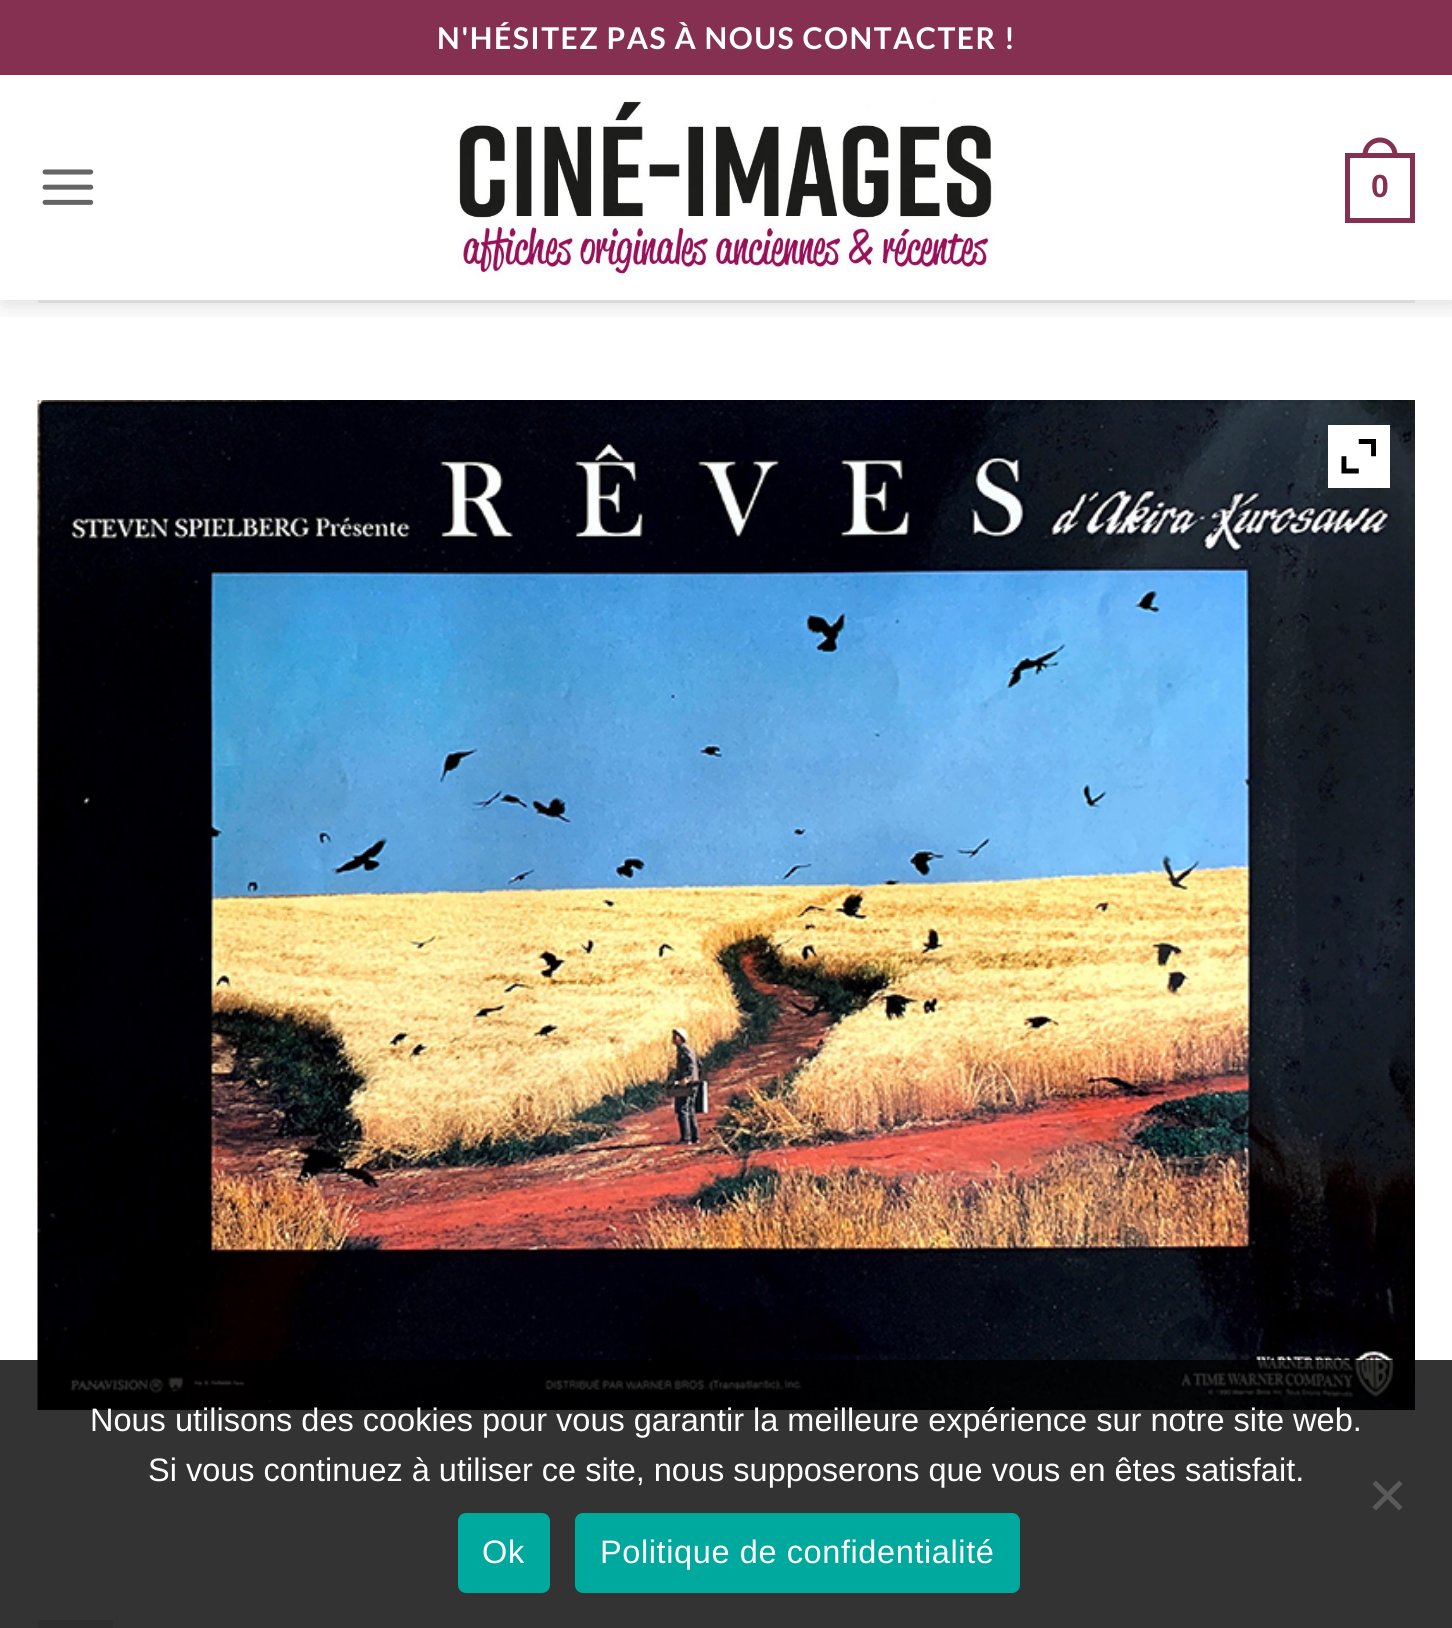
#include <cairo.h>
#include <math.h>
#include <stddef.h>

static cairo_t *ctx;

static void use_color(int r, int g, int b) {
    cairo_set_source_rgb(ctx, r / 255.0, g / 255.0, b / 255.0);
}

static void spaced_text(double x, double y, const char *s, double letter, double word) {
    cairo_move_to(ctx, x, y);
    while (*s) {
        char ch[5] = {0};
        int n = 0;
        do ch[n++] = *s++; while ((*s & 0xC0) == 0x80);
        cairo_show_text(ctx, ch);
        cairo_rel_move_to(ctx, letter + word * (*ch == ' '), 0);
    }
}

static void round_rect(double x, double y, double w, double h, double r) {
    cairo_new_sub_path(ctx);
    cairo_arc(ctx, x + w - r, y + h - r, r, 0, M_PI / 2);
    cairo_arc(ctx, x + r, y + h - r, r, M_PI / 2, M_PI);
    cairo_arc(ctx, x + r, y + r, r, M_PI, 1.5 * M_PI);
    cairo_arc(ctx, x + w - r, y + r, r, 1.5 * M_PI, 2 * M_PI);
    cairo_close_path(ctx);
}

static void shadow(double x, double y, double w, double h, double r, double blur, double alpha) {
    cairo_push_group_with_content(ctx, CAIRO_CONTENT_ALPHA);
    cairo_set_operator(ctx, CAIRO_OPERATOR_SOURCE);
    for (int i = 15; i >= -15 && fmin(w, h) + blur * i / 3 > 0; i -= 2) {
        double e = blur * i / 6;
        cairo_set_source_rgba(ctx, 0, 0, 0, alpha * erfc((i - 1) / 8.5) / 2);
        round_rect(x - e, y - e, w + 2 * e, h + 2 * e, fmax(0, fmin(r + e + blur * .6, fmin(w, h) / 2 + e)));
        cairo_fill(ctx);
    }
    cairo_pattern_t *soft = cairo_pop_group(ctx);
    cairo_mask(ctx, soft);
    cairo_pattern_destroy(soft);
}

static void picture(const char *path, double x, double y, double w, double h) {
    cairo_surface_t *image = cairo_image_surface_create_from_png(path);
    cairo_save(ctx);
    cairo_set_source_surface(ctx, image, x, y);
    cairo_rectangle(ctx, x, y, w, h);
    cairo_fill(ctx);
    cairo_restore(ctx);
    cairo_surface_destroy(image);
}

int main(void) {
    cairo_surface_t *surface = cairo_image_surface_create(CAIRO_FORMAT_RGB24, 1452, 1628);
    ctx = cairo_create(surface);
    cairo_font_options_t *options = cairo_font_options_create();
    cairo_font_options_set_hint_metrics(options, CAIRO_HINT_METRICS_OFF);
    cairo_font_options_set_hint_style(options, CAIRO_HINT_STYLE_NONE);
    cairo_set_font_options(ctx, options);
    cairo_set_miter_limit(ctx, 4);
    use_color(255, 255, 255);
    cairo_paint(ctx);
    cairo_save(ctx);
    cairo_rectangle(ctx, 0, 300, 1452, 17);
    cairo_clip(ctx);
    use_color(0, 0, 0);
    shadow(3, 3, 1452, 300, 0, 12.5, 0.15);
    cairo_restore(ctx);
    use_color(134, 48, 81);
    cairo_rectangle(ctx, 0, 0, 1452, 75);
    cairo_fill(ctx);
    cairo_select_font_face(ctx, "Lato", CAIRO_FONT_SLANT_NORMAL, CAIRO_FONT_WEIGHT_BOLD);
    cairo_set_font_size(ctx, 30);
    use_color(255, 255, 255);
    spaced_text(437, 49, "N'HÉSITEZ PAS À NOUS CONTACTER !", 1.5, 0);
    picture("img1.png", 42, 169, 52, 36);
    picture("img2.png", 457, 99, 539, 178);
    cairo_rectangle(ctx, 1347.5, 155.5, 65, 65);
    use_color(134, 48, 81);
    cairo_set_line_width(ctx, 5);
    cairo_stroke(ctx);
    cairo_set_fill_rule(ctx, CAIRO_FILL_RULE_EVEN_ODD);
    cairo_new_path(ctx);
    cairo_move_to(ctx, 1380, 137.5);
    cairo_curve_to(ctx, 1389.5, 137.5, 1397.5, 145.5, 1397.5, 155);
    cairo_line_to(ctx, 1397.5, 157.5);
    cairo_line_to(ctx, 1362.5, 157.5);
    cairo_line_to(ctx, 1362.5, 155);
    cairo_curve_to(ctx, 1362.5, 145.5, 1370.5, 137.5, 1380, 137.5);
    cairo_close_path(ctx);
    cairo_move_to(ctx, 1380, 142.5);
    cairo_curve_to(ctx, 1387, 142.5, 1392.5, 148, 1392.5, 155);
    cairo_line_to(ctx, 1392.5, 157.5);
    cairo_line_to(ctx, 1367.5, 157.5);
    cairo_line_to(ctx, 1367.5, 155);
    cairo_curve_to(ctx, 1367.5, 148, 1373, 142.5, 1380, 142.5);
    cairo_close_path(ctx);
    cairo_fill(ctx);
    cairo_select_font_face(ctx, "Liberation Sans", CAIRO_FONT_SLANT_NORMAL, CAIRO_FONT_WEIGHT_BOLD);
    cairo_set_font_size(ctx, 32);
    cairo_move_to(ctx, 1371, 197);
    cairo_show_text(ctx, "0");
    use_color(218, 218, 218);
    cairo_rectangle(ctx, 38, 300, 1377, 3);
    cairo_fill(ctx);
    picture("img3.png", 37, 400, 1378, 1010);
    use_color(255, 255, 255);
    cairo_rectangle(ctx, 1328, 425, 62, 63);
    cairo_fill(ctx);
    picture("img4.png", 1341, 439, 35, 35);
    use_color(230, 230, 230);
    cairo_rectangle(ctx, 38, 1620, 75, 8);
    cairo_fill(ctx);
    cairo_set_source_rgba(ctx, 0, 0, 0, 0.8);
    cairo_rectangle(ctx, 0, 1360, 1452, 268);
    cairo_fill(ctx);
    cairo_select_font_face(ctx, "Liberation Sans", CAIRO_FONT_SLANT_NORMAL, CAIRO_FONT_WEIGHT_NORMAL);
    cairo_set_font_size(ctx, 32.5);
    use_color(255, 255, 255);
    cairo_move_to(ctx, 90, 1431);
    cairo_show_text(ctx, "Nous utilisons des cookies pour vous garantir la meilleure expérience sur notre site web.");
    cairo_move_to(ctx, 148, 1481);
    cairo_show_text(ctx, "Si vous continuez à utiliser ce site, nous supposerons que vous en êtes satisfait.");
    use_color(90, 90, 90);
    cairo_set_fill_rule(ctx, CAIRO_FILL_RULE_WINDING);
    cairo_new_path(ctx);
    cairo_move_to(ctx, 1399, 1480.5);
    cairo_line_to(ctx, 1402.5, 1484);
    cairo_line_to(ctx, 1376, 1510.5);
    cairo_line_to(ctx, 1372.5, 1507);
    cairo_close_path(ctx);
    cairo_fill(ctx);
    cairo_new_path(ctx);
    cairo_move_to(ctx, 1372.5, 1484);
    cairo_line_to(ctx, 1376, 1480.5);
    cairo_line_to(ctx, 1402.5, 1507);
    cairo_line_to(ctx, 1399, 1510.5);
    cairo_close_path(ctx);
    cairo_fill(ctx);
    use_color(0, 169, 157);
    round_rect(458, 1513, 92, 80, 8);
    cairo_fill(ctx);
    use_color(255, 255, 255);
    spaced_text(482, 1563, "Ok", 0.6, 0);
    use_color(0, 169, 157);
    round_rect(575, 1513, 445, 80, 8);
    cairo_fill(ctx);
    use_color(255, 255, 255);
    spaced_text(600, 1563, "Politique de confidentialité", 0.6, 0);
    cairo_surface_write_to_png(surface, "result.png");
    cairo_font_options_destroy(options);
    cairo_destroy(ctx);
    cairo_surface_destroy(surface);
    return 0;
}
